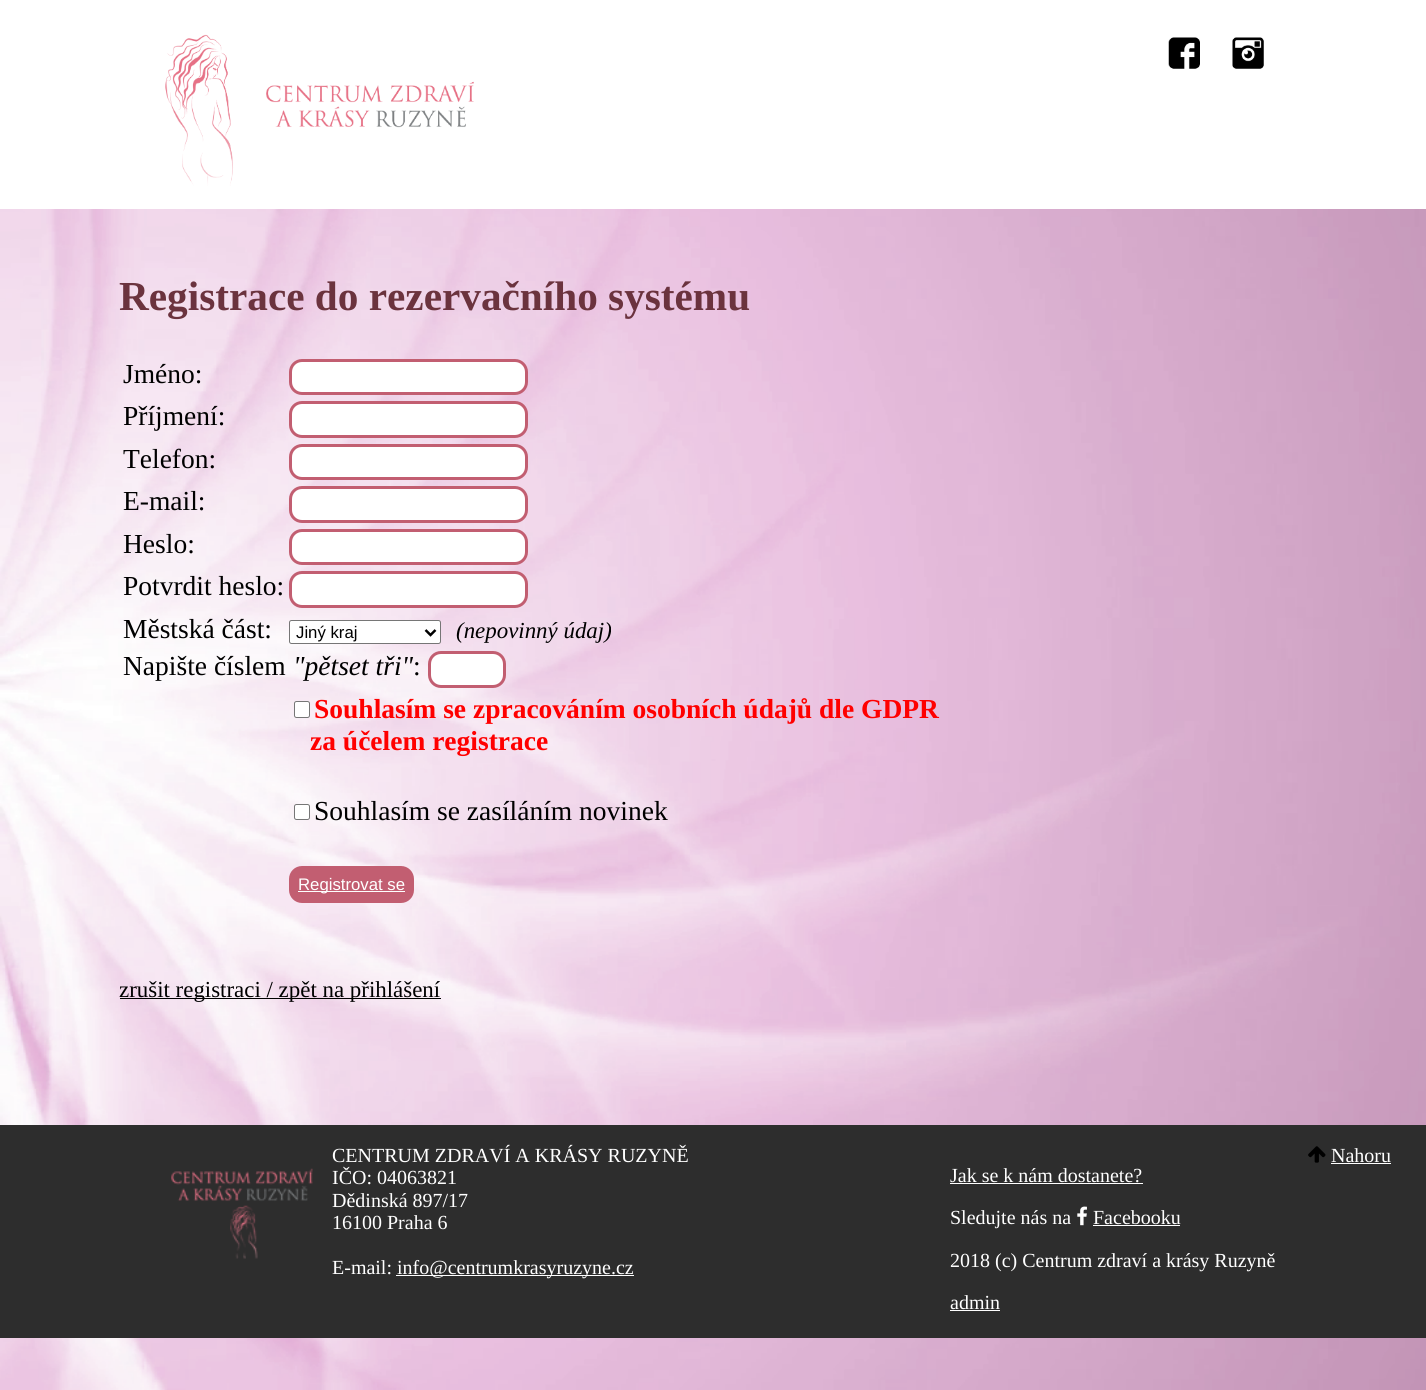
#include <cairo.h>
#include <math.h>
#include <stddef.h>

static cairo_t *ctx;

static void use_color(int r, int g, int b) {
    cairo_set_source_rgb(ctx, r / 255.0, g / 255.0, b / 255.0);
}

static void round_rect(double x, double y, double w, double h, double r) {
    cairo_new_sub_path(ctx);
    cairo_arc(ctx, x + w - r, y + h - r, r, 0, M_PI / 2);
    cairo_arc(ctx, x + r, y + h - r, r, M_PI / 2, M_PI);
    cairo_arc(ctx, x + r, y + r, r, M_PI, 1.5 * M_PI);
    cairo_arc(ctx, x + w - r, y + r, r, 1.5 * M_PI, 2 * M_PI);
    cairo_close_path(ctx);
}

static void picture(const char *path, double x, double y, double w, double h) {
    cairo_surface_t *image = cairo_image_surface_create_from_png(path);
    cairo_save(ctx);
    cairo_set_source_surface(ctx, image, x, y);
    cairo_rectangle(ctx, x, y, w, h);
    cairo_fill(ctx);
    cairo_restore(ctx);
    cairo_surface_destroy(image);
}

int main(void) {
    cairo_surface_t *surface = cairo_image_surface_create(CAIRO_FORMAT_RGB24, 1426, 1390);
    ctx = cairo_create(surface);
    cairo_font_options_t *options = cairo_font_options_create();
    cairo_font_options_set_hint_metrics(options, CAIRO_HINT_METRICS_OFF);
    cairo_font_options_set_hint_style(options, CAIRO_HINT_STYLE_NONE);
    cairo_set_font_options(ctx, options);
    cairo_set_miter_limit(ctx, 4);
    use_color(255, 255, 255);
    cairo_paint(ctx);
    picture("img1.png", 0, 209, 1426, 1181);
    picture("img2.png", 165, 34, 309, 152);
    picture("img3.png", 1168, 37, 32, 32);
    picture("img4.png", 1232, 37, 32, 32);
    cairo_select_font_face(ctx, "Liberation Serif", CAIRO_FONT_SLANT_NORMAL, CAIRO_FONT_WEIGHT_BOLD);
    cairo_set_font_size(ctx, 41.25);
    use_color(107, 51, 62);
    cairo_move_to(ctx, 119, 310);
    cairo_show_text(ctx, "Registrace do rezervačního systému");
    cairo_select_font_face(ctx, "Liberation Serif", CAIRO_FONT_SLANT_NORMAL, CAIRO_FONT_WEIGHT_NORMAL);
    cairo_set_font_size(ctx, 27.5);
    use_color(0, 0, 0);
    cairo_move_to(ctx, 123, 383);
    cairo_show_text(ctx, "Jméno:");
    use_color(255, 255, 255);
    round_rect(290.5, 360.5, 236, 33, 11.5);
    cairo_fill_preserve(ctx);
    use_color(194, 94, 113);
    cairo_set_line_width(ctx, 3);
    cairo_stroke(ctx);
    use_color(0, 0, 0);
    cairo_move_to(ctx, 123, 425);
    cairo_show_text(ctx, "Příjmení:");
    use_color(255, 255, 255);
    round_rect(290.5, 402.5, 236, 34, 11.5);
    cairo_fill_preserve(ctx);
    use_color(194, 94, 113);
    cairo_stroke(ctx);
    use_color(0, 0, 0);
    cairo_move_to(ctx, 123, 468);
    cairo_show_text(ctx, "Telefon:");
    use_color(255, 255, 255);
    round_rect(290.5, 445.5, 236, 33, 11.5);
    cairo_fill_preserve(ctx);
    use_color(194, 94, 113);
    cairo_stroke(ctx);
    use_color(0, 0, 0);
    cairo_move_to(ctx, 123, 510);
    cairo_show_text(ctx, "E-mail:");
    use_color(255, 255, 255);
    round_rect(290.5, 487.5, 236, 34, 11.5);
    cairo_fill_preserve(ctx);
    use_color(194, 94, 113);
    cairo_stroke(ctx);
    use_color(0, 0, 0);
    cairo_move_to(ctx, 123, 553);
    cairo_show_text(ctx, "Heslo:");
    use_color(255, 255, 255);
    round_rect(290.5, 530.5, 236, 33, 11.5);
    cairo_fill_preserve(ctx);
    use_color(194, 94, 113);
    cairo_stroke(ctx);
    use_color(0, 0, 0);
    cairo_move_to(ctx, 123, 595);
    cairo_show_text(ctx, "Potvrdit heslo:");
    use_color(255, 255, 255);
    round_rect(290.5, 572.5, 236, 34, 11.5);
    cairo_fill_preserve(ctx);
    use_color(194, 94, 113);
    cairo_stroke(ctx);
    use_color(0, 0, 0);
    cairo_move_to(ctx, 123, 638);
    cairo_show_text(ctx, "Městská část:");
    use_color(255, 255, 255);
    round_rect(289.5, 620.5, 151, 23, 2);
    cairo_fill_preserve(ctx);
    use_color(118, 118, 118);
    cairo_set_line_width(ctx, 1);
    cairo_stroke(ctx);
    cairo_new_path(ctx);
    cairo_move_to(ctx, 425.5, 630);
    cairo_line_to(ctx, 430.5, 635);
    cairo_line_to(ctx, 435.5, 630);
    use_color(0, 0, 0);
    cairo_set_line_width(ctx, 2.5);
    cairo_stroke(ctx);
    cairo_select_font_face(ctx, "Liberation Sans", CAIRO_FONT_SLANT_NORMAL, CAIRO_FONT_WEIGHT_NORMAL);
    cairo_set_font_size(ctx, 16.75);
    cairo_move_to(ctx, 296, 638);
    cairo_show_text(ctx, "Jiný kraj");
    cairo_select_font_face(ctx, "Liberation Serif", CAIRO_FONT_SLANT_ITALIC, CAIRO_FONT_WEIGHT_NORMAL);
    cairo_set_font_size(ctx, 22.9);
    cairo_move_to(ctx, 456, 638);
    cairo_show_text(ctx, "(nepovinný údaj)");
    cairo_select_font_face(ctx, "Liberation Serif", CAIRO_FONT_SLANT_NORMAL, CAIRO_FONT_WEIGHT_NORMAL);
    cairo_set_font_size(ctx, 27.5);
    cairo_move_to(ctx, 123, 675);
    cairo_show_text(ctx, "Napište číslem");
    cairo_select_font_face(ctx, "Liberation Serif", CAIRO_FONT_SLANT_ITALIC, CAIRO_FONT_WEIGHT_NORMAL);
    cairo_move_to(ctx, 293, 675);
    cairo_show_text(ctx, "\"pětset tři\"");
    cairo_select_font_face(ctx, "Liberation Serif", CAIRO_FONT_SLANT_NORMAL, CAIRO_FONT_WEIGHT_NORMAL);
    cairo_move_to(ctx, 413, 675);
    cairo_show_text(ctx, ":");
    use_color(255, 255, 255);
    round_rect(429.5, 652.5, 75, 34, 11.5);
    cairo_fill_preserve(ctx);
    use_color(194, 94, 113);
    cairo_set_line_width(ctx, 3);
    cairo_stroke(ctx);
    use_color(255, 255, 255);
    round_rect(294.5, 701.5, 15, 16, 2);
    cairo_fill_preserve(ctx);
    use_color(118, 118, 118);
    cairo_set_line_width(ctx, 1);
    cairo_stroke(ctx);
    cairo_select_font_face(ctx, "Liberation Serif", CAIRO_FONT_SLANT_NORMAL, CAIRO_FONT_WEIGHT_BOLD);
    use_color(255, 0, 0);
    cairo_move_to(ctx, 314, 718);
    cairo_show_text(ctx, "Souhlasím se zpracováním osobních údajů dle GDPR");
    cairo_move_to(ctx, 310, 750);
    cairo_show_text(ctx, "za účelem registrace");
    use_color(255, 255, 255);
    round_rect(294.5, 804.5, 15, 15, 2);
    cairo_fill_preserve(ctx);
    use_color(118, 118, 118);
    cairo_stroke(ctx);
    cairo_select_font_face(ctx, "Liberation Serif", CAIRO_FONT_SLANT_NORMAL, CAIRO_FONT_WEIGHT_NORMAL);
    use_color(0, 0, 0);
    cairo_move_to(ctx, 314, 820);
    cairo_show_text(ctx, "Souhlasím se zasíláním novinek");
    use_color(194, 94, 113);
    round_rect(290.5, 867.5, 122, 34, 11.5);
    cairo_fill_preserve(ctx);
    cairo_set_line_width(ctx, 3);
    cairo_stroke(ctx);
    use_color(255, 255, 255);
    cairo_rectangle(ctx, 298, 891, 107, 1);
    cairo_fill(ctx);
    cairo_select_font_face(ctx, "Liberation Sans", CAIRO_FONT_SLANT_NORMAL, CAIRO_FONT_WEIGHT_NORMAL);
    cairo_set_font_size(ctx, 16.75);
    cairo_move_to(ctx, 298, 890);
    cairo_show_text(ctx, "Registrovat se");
    use_color(0, 0, 0);
    cairo_rectangle(ctx, 120, 998, 321, 1);
    cairo_fill(ctx);
    cairo_select_font_face(ctx, "Liberation Serif", CAIRO_FONT_SLANT_NORMAL, CAIRO_FONT_WEIGHT_NORMAL);
    cairo_set_font_size(ctx, 22.9);
    cairo_move_to(ctx, 119, 997);
    cairo_show_text(ctx, "zrušit registraci / zpět na přihlášení");
    use_color(45, 45, 45);
    cairo_rectangle(ctx, 0, 1125, 1426, 213);
    cairo_fill(ctx);
    picture("img5.png", 171, 1168, 142, 91);
    cairo_set_font_size(ctx, 20);
    use_color(255, 255, 255);
    cairo_move_to(ctx, 332, 1162);
    cairo_show_text(ctx, "CENTRUM ZDRAVÍ A KRÁSY RUZYNĚ");
    cairo_move_to(ctx, 332, 1184);
    cairo_show_text(ctx, "IČO: 04063821");
    cairo_move_to(ctx, 332, 1207);
    cairo_show_text(ctx, "Dědinská 897/17");
    cairo_move_to(ctx, 332, 1229);
    cairo_show_text(ctx, "16100 Praha 6");
    cairo_move_to(ctx, 332, 1274);
    cairo_show_text(ctx, "E-mail:");
    cairo_rectangle(ctx, 396, 1275, 238, 1);
    cairo_fill(ctx);
    cairo_move_to(ctx, 397, 1274);
    cairo_show_text(ctx, "info@centrumkrasyruzyne.cz");
    cairo_move_to(ctx, 950, 1182);
    cairo_show_text(ctx, "Jak se k nám dostanete?");
    cairo_rectangle(ctx, 950, 1183, 193, 1);
    cairo_fill(ctx);
    cairo_move_to(ctx, 950, 1224);
    cairo_show_text(ctx, "Sledujte nás na");
    picture("img6.png", 1077, 1206, 10, 20);
    cairo_move_to(ctx, 1093, 1224);
    cairo_show_text(ctx, "Facebooku");
    cairo_rectangle(ctx, 1093, 1225, 87, 1);
    cairo_fill(ctx);
    cairo_move_to(ctx, 950, 1267);
    cairo_show_text(ctx, "2018 (c) Centrum zdraví a krásy Ruzyně");
    cairo_move_to(ctx, 950, 1309);
    cairo_show_text(ctx, "admin");
    cairo_rectangle(ctx, 950, 1310, 50, 1);
    cairo_fill(ctx);
    picture("img7.png", 1308, 1146, 18, 17);
    cairo_move_to(ctx, 1331, 1162);
    cairo_show_text(ctx, "Nahoru");
    cairo_rectangle(ctx, 1331, 1163, 60, 1);
    cairo_fill(ctx);
    cairo_surface_write_to_png(surface, "result.png");
    cairo_font_options_destroy(options);
    cairo_destroy(ctx);
    cairo_surface_destroy(surface);
    return 0;
}
